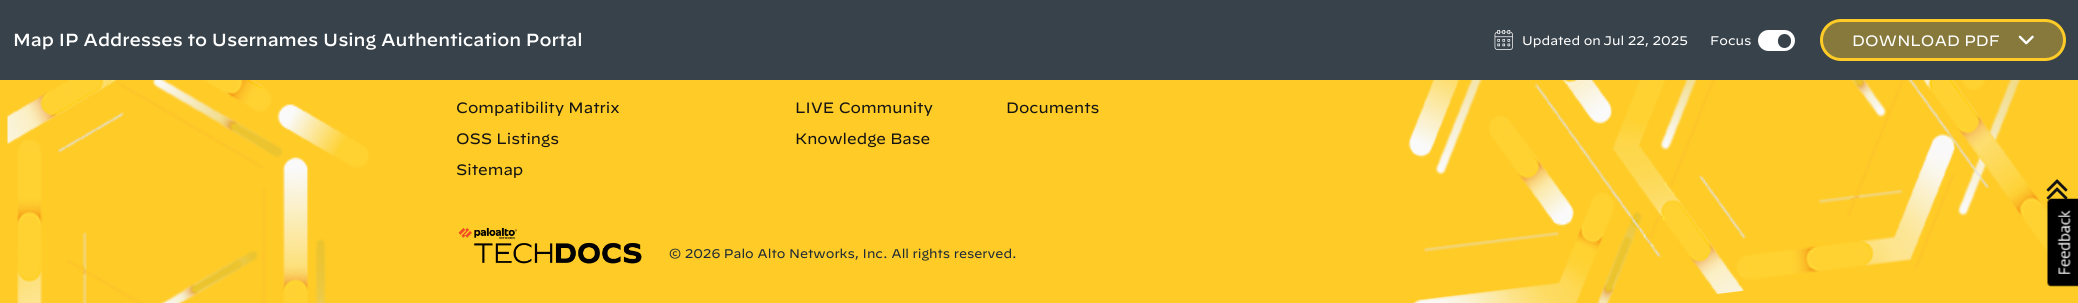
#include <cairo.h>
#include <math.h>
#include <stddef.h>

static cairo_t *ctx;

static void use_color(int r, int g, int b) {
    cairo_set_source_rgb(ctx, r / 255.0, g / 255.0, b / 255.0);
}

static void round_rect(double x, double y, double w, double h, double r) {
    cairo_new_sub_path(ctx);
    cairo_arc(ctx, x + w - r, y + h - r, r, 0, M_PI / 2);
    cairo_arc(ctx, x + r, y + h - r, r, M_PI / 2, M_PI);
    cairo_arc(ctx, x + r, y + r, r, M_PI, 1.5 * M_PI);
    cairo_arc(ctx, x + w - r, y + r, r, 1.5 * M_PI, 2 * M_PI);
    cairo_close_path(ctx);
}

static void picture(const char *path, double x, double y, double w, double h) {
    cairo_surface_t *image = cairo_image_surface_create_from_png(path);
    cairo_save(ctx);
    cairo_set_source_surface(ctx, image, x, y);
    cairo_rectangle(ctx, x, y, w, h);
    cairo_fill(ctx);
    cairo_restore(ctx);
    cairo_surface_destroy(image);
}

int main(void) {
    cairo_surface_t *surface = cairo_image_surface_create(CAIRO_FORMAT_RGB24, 2078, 303);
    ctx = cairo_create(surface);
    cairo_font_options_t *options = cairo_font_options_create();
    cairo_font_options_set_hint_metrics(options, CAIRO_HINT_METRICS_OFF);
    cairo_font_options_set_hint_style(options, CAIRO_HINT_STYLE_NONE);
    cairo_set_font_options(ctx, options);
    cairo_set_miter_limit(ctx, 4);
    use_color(255, 203, 38);
    cairo_paint(ctx);
    use_color(55, 66, 75);
    cairo_rectangle(ctx, 0, 0, 2078, 80);
    cairo_fill(ctx);
    cairo_select_font_face(ctx, "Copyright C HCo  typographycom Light", CAIRO_FONT_SLANT_NORMAL, CAIRO_FONT_WEIGHT_NORMAL);
    cairo_set_font_size(ctx, 17.5);
    use_color(255, 255, 255);
    cairo_move_to(ctx, 13, 46);
    cairo_show_text(ctx, "Map IP Addresses to Usernames Using Authentication Portal");
    picture("img1.png", 1494, 30, 19, 20);
    cairo_select_font_face(ctx, "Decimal", CAIRO_FONT_SLANT_NORMAL, CAIRO_FONT_WEIGHT_NORMAL);
    cairo_set_font_size(ctx, 12.5);
    cairo_move_to(ctx, 1522, 45);
    cairo_show_text(ctx, "Updated on");
    cairo_move_to(ctx, 1603, 45);
    cairo_show_text(ctx, "Jul 22, 2025");
    cairo_move_to(ctx, 1710, 45);
    cairo_show_text(ctx, "Focus");
    round_rect(1758, 30, 37, 21, 10.5);
    cairo_fill(ctx);
    use_color(55, 66, 75);
    round_rect(1778, 34, 13, 14, 6.5);
    cairo_fill(ctx);
    use_color(135, 121, 60);
    round_rect(1821.5, 20.5, 243, 39, 19.5);
    cairo_fill_preserve(ctx);
    use_color(255, 203, 38);
    cairo_set_line_width(ctx, 3);
    cairo_stroke(ctx);
    cairo_set_font_size(ctx, 15);
    use_color(255, 255, 255);
    cairo_move_to(ctx, 1852, 46);
    cairo_show_text(ctx, "DOWNLOAD PDF");
    picture("img2.png", 2018, 35, 16, 10);
    picture("img3.png", 7, 80, 362, 223);
    use_color(20, 20, 20);
    cairo_move_to(ctx, 456, 113);
    cairo_show_text(ctx, "Compatibility Matrix");
    cairo_move_to(ctx, 456, 144);
    cairo_show_text(ctx, "OSS Listings");
    cairo_move_to(ctx, 456, 175);
    cairo_show_text(ctx, "Sitemap");
    cairo_move_to(ctx, 795, 113);
    cairo_show_text(ctx, "LIVE Community");
    cairo_move_to(ctx, 795, 144);
    cairo_show_text(ctx, "Knowledge Base");
    cairo_move_to(ctx, 1006, 113);
    cairo_show_text(ctx, "Documents");
    picture("img4.png", 1408, 80, 640, 223);
    picture("img5.png", 458, 227, 184, 37);
    cairo_set_font_size(ctx, 12.5);
    use_color(31, 43, 53);
    cairo_move_to(ctx, 669, 258);
    cairo_show_text(ctx, "© 2026 Palo Alto Networks, Inc. All rights reserved.");
    picture("img7.png", 2047, 198, 31, 89);
    picture("img6.png", 2046, 179, 22, 21);
    cairo_surface_write_to_png(surface, "result.png");
    cairo_font_options_destroy(options);
    cairo_destroy(ctx);
    cairo_surface_destroy(surface);
    return 0;
}
